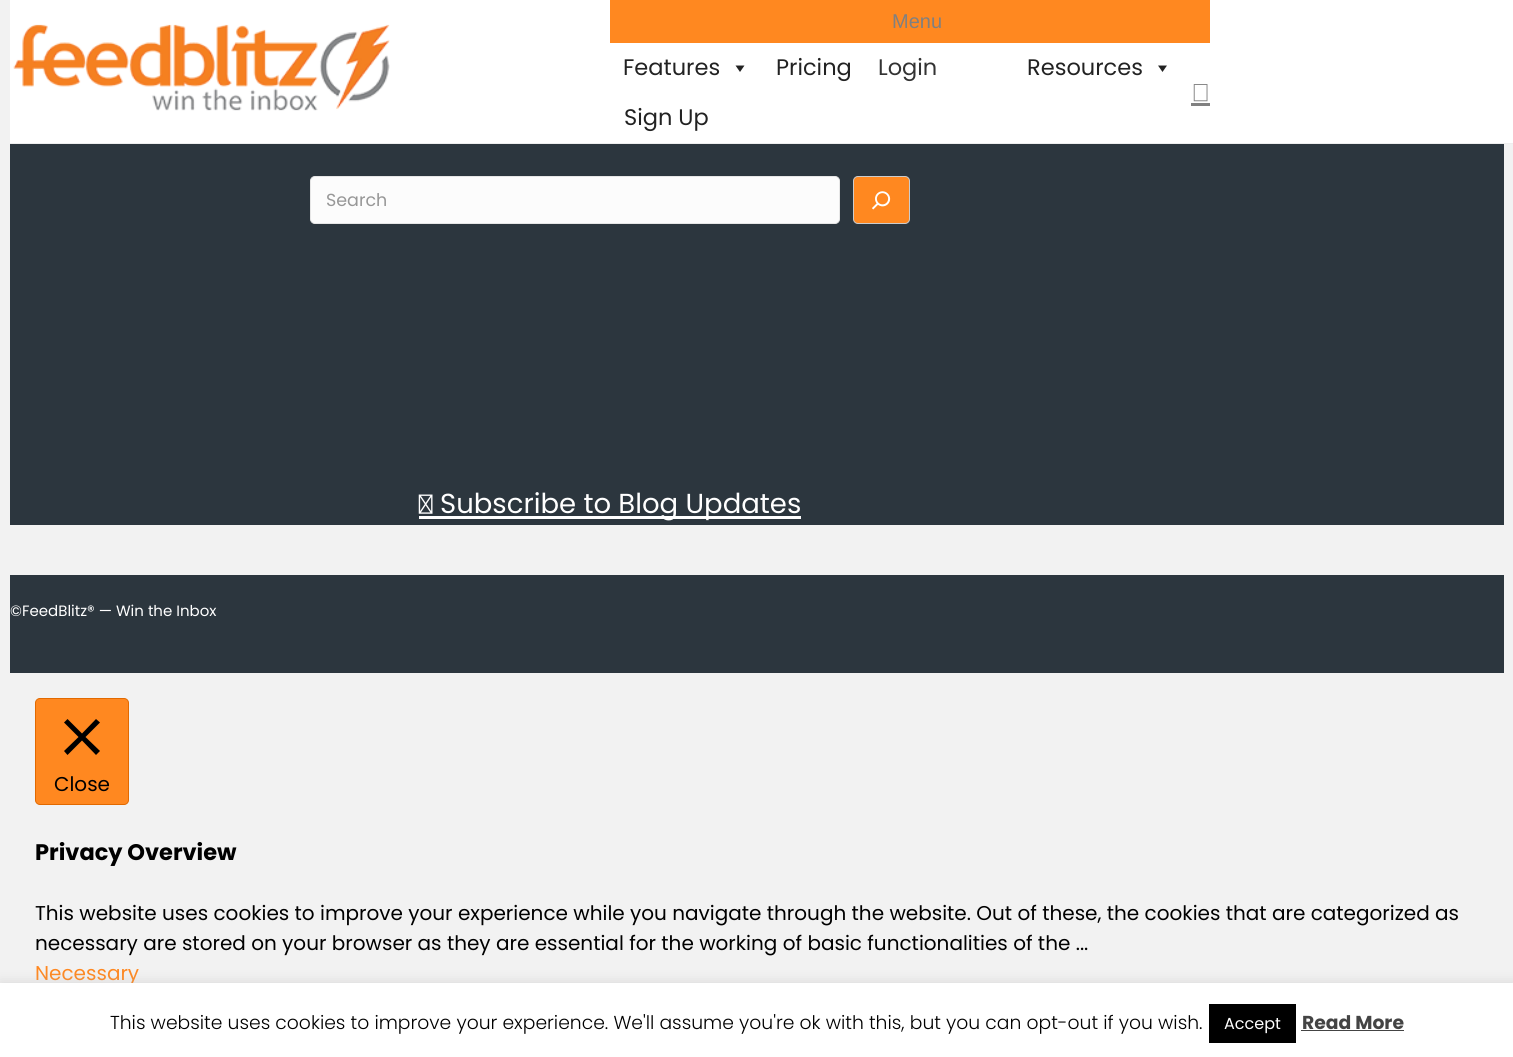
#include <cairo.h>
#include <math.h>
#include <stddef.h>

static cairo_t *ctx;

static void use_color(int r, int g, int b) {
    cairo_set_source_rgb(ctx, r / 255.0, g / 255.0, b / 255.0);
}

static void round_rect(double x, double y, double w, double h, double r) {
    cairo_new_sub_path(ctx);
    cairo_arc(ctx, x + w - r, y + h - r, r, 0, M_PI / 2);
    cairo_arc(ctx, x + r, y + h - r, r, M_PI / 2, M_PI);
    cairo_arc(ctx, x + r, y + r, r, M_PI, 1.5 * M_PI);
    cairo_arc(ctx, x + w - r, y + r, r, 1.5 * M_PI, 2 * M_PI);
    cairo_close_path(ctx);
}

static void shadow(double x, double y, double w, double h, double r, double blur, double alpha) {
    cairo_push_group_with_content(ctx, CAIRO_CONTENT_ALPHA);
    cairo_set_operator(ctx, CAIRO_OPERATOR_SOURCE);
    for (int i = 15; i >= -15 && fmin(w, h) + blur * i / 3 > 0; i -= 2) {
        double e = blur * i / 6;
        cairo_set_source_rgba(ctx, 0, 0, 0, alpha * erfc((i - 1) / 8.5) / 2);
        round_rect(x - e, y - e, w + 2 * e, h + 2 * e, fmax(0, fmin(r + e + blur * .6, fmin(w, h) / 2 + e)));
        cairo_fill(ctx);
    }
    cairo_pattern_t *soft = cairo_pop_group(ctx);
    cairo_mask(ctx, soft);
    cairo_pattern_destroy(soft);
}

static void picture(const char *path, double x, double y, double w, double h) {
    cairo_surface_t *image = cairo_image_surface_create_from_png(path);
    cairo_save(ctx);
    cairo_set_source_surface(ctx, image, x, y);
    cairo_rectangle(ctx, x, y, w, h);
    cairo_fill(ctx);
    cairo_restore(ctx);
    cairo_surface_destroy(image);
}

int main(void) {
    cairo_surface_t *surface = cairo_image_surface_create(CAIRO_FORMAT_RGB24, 1513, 1057);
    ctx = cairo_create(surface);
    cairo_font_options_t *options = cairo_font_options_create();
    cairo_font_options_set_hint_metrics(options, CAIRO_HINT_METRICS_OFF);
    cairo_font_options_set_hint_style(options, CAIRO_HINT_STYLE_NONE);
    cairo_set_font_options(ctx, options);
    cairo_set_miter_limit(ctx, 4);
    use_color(242, 242, 242);
    cairo_paint(ctx);
    use_color(255, 255, 255);
    cairo_rectangle(ctx, 10, 0, 1503, 143);
    cairo_fill(ctx);
    use_color(238, 238, 238);
    cairo_rectangle(ctx, 10, 143, 1503, 1);
    cairo_fill(ctx);
    picture("img1.png", 13, 24, 377, 87);
    use_color(255, 136, 32);
    cairo_rectangle(ctx, 610, 0, 600, 43);
    cairo_fill(ctx);
    cairo_select_font_face(ctx, "Liberation Sans", CAIRO_FONT_SLANT_NORMAL, CAIRO_FONT_WEIGHT_NORMAL);
    cairo_set_font_size(ctx, 20);
    use_color(128, 128, 128);
    cairo_move_to(ctx, 892, 28);
    cairo_show_text(ctx, "Menu");
    cairo_select_font_face(ctx, "Poppins", CAIRO_FONT_SLANT_NORMAL, CAIRO_FONT_WEIGHT_NORMAL);
    cairo_set_font_size(ctx, 22.5);
    use_color(34, 34, 34);
    cairo_move_to(ctx, 623, 75);
    cairo_show_text(ctx, "Features");
    cairo_new_path(ctx);
    cairo_move_to(ctx, 744.5, 65.5);
    cairo_line_to(ctx, 740, 72);
    cairo_line_to(ctx, 735.5, 65.5);
    cairo_close_path(ctx);
    cairo_fill(ctx);
    cairo_move_to(ctx, 776, 75);
    cairo_show_text(ctx, "Pricing");
    use_color(51, 51, 51);
    cairo_move_to(ctx, 878, 75);
    cairo_show_text(ctx, "Login");
    use_color(34, 34, 34);
    cairo_move_to(ctx, 1027, 75);
    cairo_show_text(ctx, "Resources");
    cairo_new_path(ctx);
    cairo_move_to(ctx, 1167, 65.5);
    cairo_line_to(ctx, 1162.5, 72);
    cairo_line_to(ctx, 1158, 65.5);
    cairo_close_path(ctx);
    cairo_fill(ctx);
    cairo_move_to(ctx, 624, 125);
    cairo_show_text(ctx, "Sign Up");
    picture("img2.png", 1193, 84, 15, 18);
    use_color(128, 128, 128);
    cairo_rectangle(ctx, 1191, 103, 19, 3);
    cairo_fill(ctx);
    use_color(44, 54, 62);
    cairo_rectangle(ctx, 10, 144, 1494, 381);
    cairo_fill(ctx);
    use_color(252, 252, 252);
    round_rect(310.5, 176.5, 529, 47, 4.5);
    cairo_fill_preserve(ctx);
    use_color(230, 230, 230);
    cairo_set_line_width(ctx, 1);
    cairo_stroke(ctx);
    cairo_set_font_size(ctx, 17.5);
    use_color(151, 151, 151);
    cairo_move_to(ctx, 326, 206);
    cairo_show_text(ctx, "Search");
    use_color(255, 136, 32);
    round_rect(853.5, 176.5, 56, 47, 4.5);
    cairo_fill_preserve(ctx);
    use_color(204, 204, 204);
    cairo_stroke(ctx);
    picture("img3.png", 872, 191, 19, 19);
    picture("img4.png", 418, 494, 15, 20);
    use_color(255, 255, 255);
    cairo_rectangle(ctx, 419, 516, 382, 3);
    cairo_fill(ctx);
    cairo_set_font_size(ctx, 27.5);
    cairo_move_to(ctx, 440, 513);
    cairo_show_text(ctx, "Subscribe to Blog Updates");
    use_color(44, 54, 62);
    cairo_rectangle(ctx, 10, 575, 1494, 98);
    cairo_fill(ctx);
    cairo_set_font_size(ctx, 15);
    use_color(255, 255, 255);
    cairo_move_to(ctx, 10, 616);
    cairo_show_text(ctx, "©FeedBlitz® — Win the Inbox");
    use_color(255, 136, 32);
    round_rect(35.5, 698.5, 93, 106, 4.5);
    cairo_fill_preserve(ctx);
    use_color(226, 105, 0);
    cairo_stroke(ctx);
    use_color(0, 0, 0);
    cairo_new_path(ctx);
    cairo_move_to(ctx, 100, 722.5);
    cairo_line_to(ctx, 96, 719);
    cairo_line_to(ctx, 82, 733.5);
    cairo_line_to(ctx, 67.5, 719);
    cairo_line_to(ctx, 64, 722.5);
    cairo_line_to(ctx, 78.5, 737);
    cairo_line_to(ctx, 64, 751);
    cairo_line_to(ctx, 67.5, 755);
    cairo_line_to(ctx, 82, 740.5);
    cairo_line_to(ctx, 96, 755);
    cairo_line_to(ctx, 100, 751);
    cairo_line_to(ctx, 85.5, 737);
    cairo_close_path(ctx);
    cairo_fill(ctx);
    cairo_set_font_size(ctx, 20);
    cairo_move_to(ctx, 54, 791);
    cairo_show_text(ctx, "Close");
    cairo_select_font_face(ctx, "Poppins", CAIRO_FONT_SLANT_NORMAL, CAIRO_FONT_WEIGHT_BOLD);
    cairo_set_font_size(ctx, 22.5);
    cairo_move_to(ctx, 35, 860);
    cairo_show_text(ctx, "Privacy Overview");
    cairo_select_font_face(ctx, "Poppins", CAIRO_FONT_SLANT_NORMAL, CAIRO_FONT_WEIGHT_NORMAL);
    cairo_set_font_size(ctx, 20);
    cairo_move_to(ctx, 35, 920);
    cairo_show_text(ctx, "This website uses cookies to improve your experience while you navigate through the website. Out of these, the cookies that are categorized as");
    cairo_move_to(ctx, 35, 950);
    cairo_show_text(ctx, "necessary are stored on your browser as they are essential for the working of basic functionalities of the ...");
    use_color(255, 136, 32);
    cairo_move_to(ctx, 35, 980);
    cairo_show_text(ctx, "Necessary");
    use_color(172, 171, 171);
    shadow(0, 981, 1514, 75, 0, 6, 0.3);
    use_color(255, 255, 255);
    cairo_rectangle(ctx, 0, 983, 1513, 74);
    cairo_fill(ctx);
    cairo_select_font_face(ctx, "Poppins Light", CAIRO_FONT_SLANT_NORMAL, CAIRO_FONT_WEIGHT_NORMAL);
    cairo_set_font_size(ctx, 18.75);
    use_color(0, 0, 0);
    cairo_move_to(ctx, 110, 1029);
    cairo_show_text(ctx, "This website uses cookies to improve your experience. We'll assume you're ok with this, but you can opt-out if you wish.");
    cairo_rectangle(ctx, 1209, 1004, 87, 39);
    cairo_fill(ctx);
    cairo_select_font_face(ctx, "Poppins", CAIRO_FONT_SLANT_NORMAL, CAIRO_FONT_WEIGHT_NORMAL);
    cairo_set_font_size(ctx, 16);
    use_color(255, 255, 255);
    cairo_move_to(ctx, 1224, 1029);
    cairo_show_text(ctx, "Accept");
    cairo_select_font_face(ctx, "Poppins", CAIRO_FONT_SLANT_NORMAL, CAIRO_FONT_WEIGHT_BOLD);
    cairo_set_font_size(ctx, 18.75);
    use_color(68, 68, 68);
    cairo_move_to(ctx, 1302, 1029);
    cairo_show_text(ctx, "Read More");
    cairo_rectangle(ctx, 1301, 1030, 103, 1);
    cairo_fill(ctx);
    cairo_surface_write_to_png(surface, "result.png");
    cairo_font_options_destroy(options);
    cairo_destroy(ctx);
    cairo_surface_destroy(surface);
    return 0;
}
